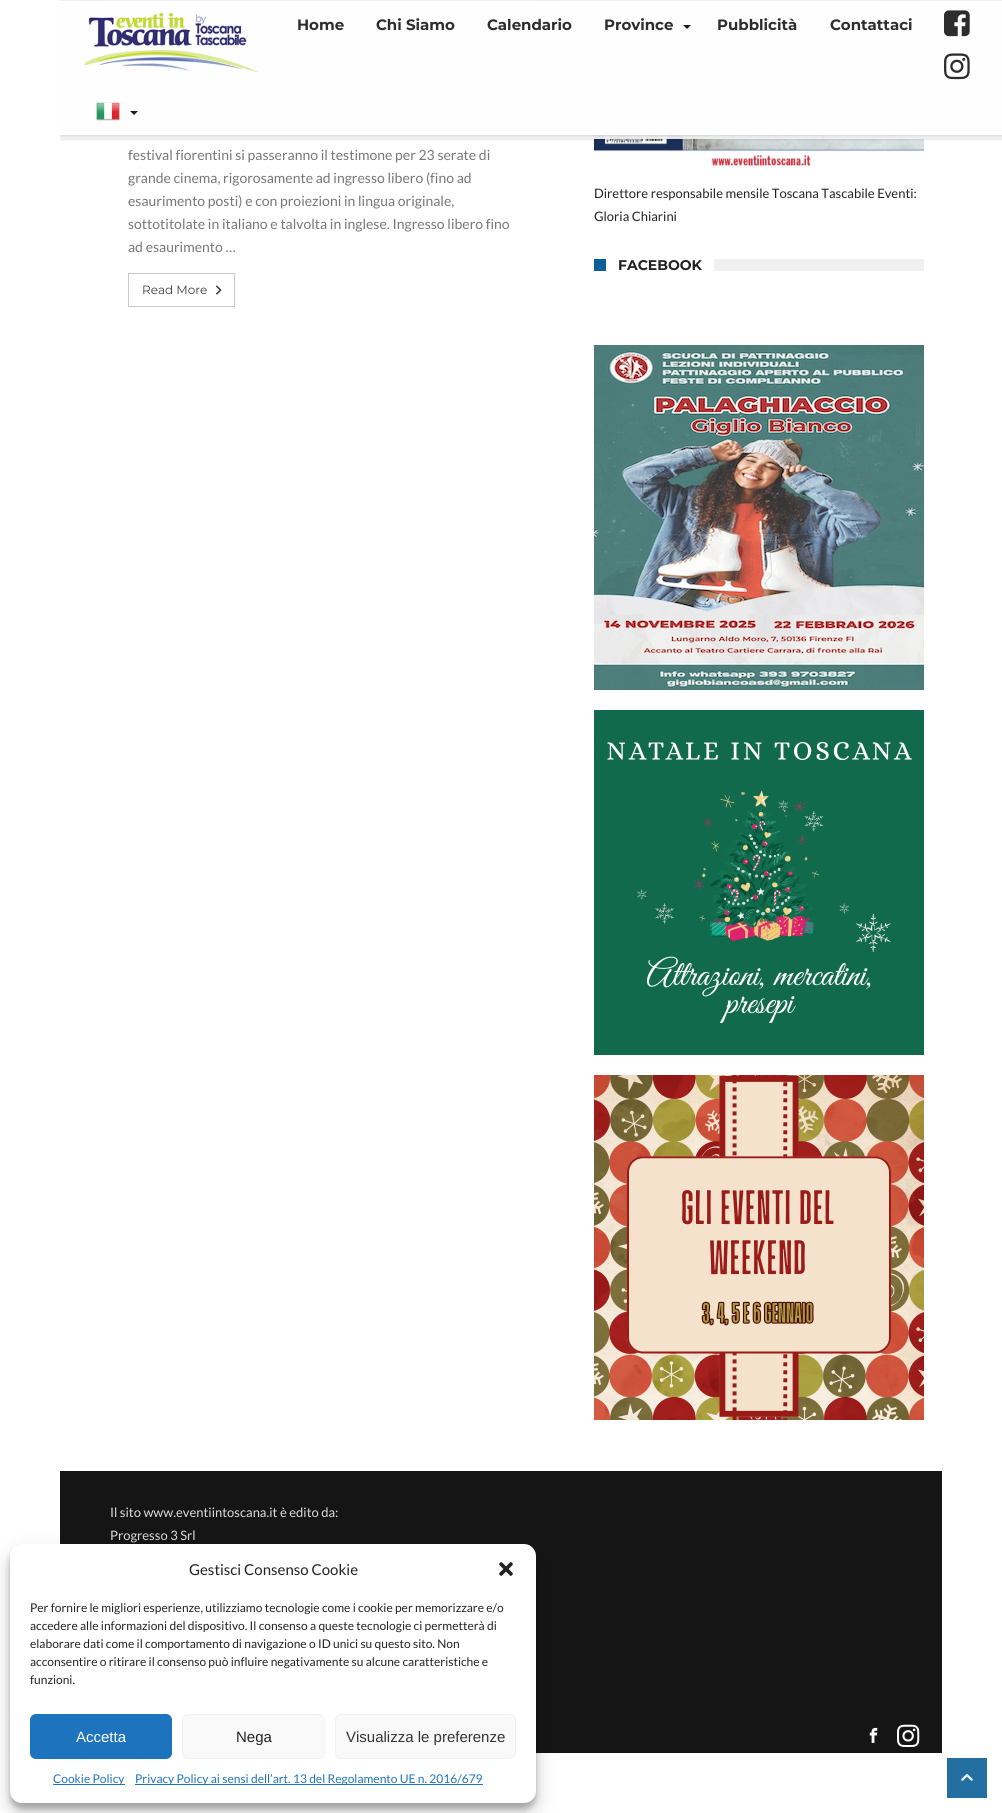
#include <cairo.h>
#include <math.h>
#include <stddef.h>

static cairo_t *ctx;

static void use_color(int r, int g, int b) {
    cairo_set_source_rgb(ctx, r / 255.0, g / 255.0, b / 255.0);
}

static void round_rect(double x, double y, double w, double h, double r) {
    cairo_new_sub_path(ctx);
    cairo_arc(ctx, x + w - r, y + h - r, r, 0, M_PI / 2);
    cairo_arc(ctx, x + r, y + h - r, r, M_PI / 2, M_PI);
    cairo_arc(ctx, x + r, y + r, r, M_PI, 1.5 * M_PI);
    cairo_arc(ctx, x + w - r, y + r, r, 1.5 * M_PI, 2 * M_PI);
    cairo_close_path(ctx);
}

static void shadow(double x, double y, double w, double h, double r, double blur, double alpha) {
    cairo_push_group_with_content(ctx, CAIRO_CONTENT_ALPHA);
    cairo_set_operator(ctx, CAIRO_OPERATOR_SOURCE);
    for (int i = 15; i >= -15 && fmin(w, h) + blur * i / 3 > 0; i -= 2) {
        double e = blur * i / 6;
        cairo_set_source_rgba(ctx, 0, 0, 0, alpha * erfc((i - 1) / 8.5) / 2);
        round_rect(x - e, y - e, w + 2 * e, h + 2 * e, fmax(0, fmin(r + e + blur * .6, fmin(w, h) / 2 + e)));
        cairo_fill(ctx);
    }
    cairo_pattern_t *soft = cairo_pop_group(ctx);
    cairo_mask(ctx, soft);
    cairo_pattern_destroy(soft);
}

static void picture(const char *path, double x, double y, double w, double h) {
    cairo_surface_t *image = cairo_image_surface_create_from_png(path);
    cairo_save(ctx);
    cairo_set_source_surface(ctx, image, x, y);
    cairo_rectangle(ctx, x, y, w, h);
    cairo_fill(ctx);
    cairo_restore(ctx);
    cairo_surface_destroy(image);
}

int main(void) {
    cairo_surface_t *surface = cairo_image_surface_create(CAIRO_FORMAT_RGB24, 1002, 1813);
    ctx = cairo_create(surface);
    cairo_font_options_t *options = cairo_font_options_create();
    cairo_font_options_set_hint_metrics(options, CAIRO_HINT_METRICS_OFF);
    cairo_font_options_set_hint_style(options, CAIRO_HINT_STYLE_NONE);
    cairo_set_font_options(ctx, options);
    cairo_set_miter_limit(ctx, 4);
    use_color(255, 255, 255);
    cairo_paint(ctx);
    use_color(204, 204, 204);
    cairo_rectangle(ctx, 78, 0, 486, 28);
    cairo_fill(ctx);
    use_color(255, 255, 255);
    cairo_rectangle(ctx, 108, 0, 426, 28);
    cairo_fill(ctx);
    picture("img5.png", 331, 73, 14, 10);
    picture("img6.png", 372, 71, 14, 13);
    picture("img8.png", 594, 0, 331, 168);
    cairo_save(ctx);
    cairo_rectangle(ctx, 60, 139, 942, 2);
    cairo_clip(ctx);
    use_color(0, 0, 0);
    shadow(61, 1, 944, 139, 0, 1, 0.1);
    cairo_restore(ctx);
    cairo_set_source_rgba(ctx, 0.941, 0.941, 0.941, 0.95);
    cairo_rectangle(ctx, 60, 0, 942, 139);
    cairo_fill(ctx);
    cairo_rectangle(ctx, 594, 0, 291, 1);
    cairo_fill(ctx);
    cairo_save(ctx);
    cairo_rectangle(ctx, 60, 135, 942, 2);
    cairo_clip(ctx);
    use_color(0, 0, 0);
    shadow(61, 2, 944, 134, 0, 1, 0.1);
    cairo_restore(ctx);
    cairo_set_source_rgba(ctx, 1, 1, 1, 0.95);
    cairo_rectangle(ctx, 60, 1, 942, 134);
    cairo_fill(ctx);
    picture("img1.png", 84, 12, 174, 61);
    cairo_select_font_face(ctx, "Montserrat", CAIRO_FONT_SLANT_NORMAL, CAIRO_FONT_WEIGHT_BOLD);
    cairo_set_font_size(ctx, 15);
    use_color(45, 45, 45);
    cairo_move_to(ctx, 297, 30);
    cairo_show_text(ctx, "Home");
    cairo_move_to(ctx, 376, 30);
    cairo_show_text(ctx, "Chi Siamo");
    cairo_move_to(ctx, 487, 30);
    cairo_show_text(ctx, "Calendario");
    cairo_move_to(ctx, 604, 30);
    cairo_show_text(ctx, "Province");
    use_color(29, 29, 29);
    cairo_new_path(ctx);
    cairo_move_to(ctx, 683, 25);
    cairo_line_to(ctx, 691, 25);
    cairo_line_to(ctx, 687, 29);
    cairo_close_path(ctx);
    cairo_fill(ctx);
    use_color(45, 45, 45);
    cairo_move_to(ctx, 717, 30);
    cairo_show_text(ctx, "Pubblicità");
    cairo_move_to(ctx, 830, 30);
    cairo_show_text(ctx, "Contattaci");
    picture("img2.png", 944, 10, 26, 27);
    picture("img3.png", 944, 53, 26, 27);
    picture("img4.png", 96, 102, 24, 19);
    use_color(29, 29, 29);
    cairo_new_path(ctx);
    cairo_move_to(ctx, 130, 111);
    cairo_line_to(ctx, 138, 111);
    cairo_line_to(ctx, 134, 115);
    cairo_close_path(ctx);
    cairo_fill(ctx);
    cairo_select_font_face(ctx, "Lato", CAIRO_FONT_SLANT_NORMAL, CAIRO_FONT_WEIGHT_NORMAL);
    cairo_set_font_size(ctx, 14);
    use_color(119, 119, 119);
    cairo_move_to(ctx, 128, 160);
    cairo_show_text(ctx, "festival fiorentini si passeranno il testimone per 23 serate di");
    cairo_move_to(ctx, 128, 183);
    cairo_show_text(ctx, "grande cinema, rigorosamente ad ingresso libero (fino ad");
    cairo_move_to(ctx, 128, 206);
    cairo_show_text(ctx, "esaurimento posti) e con proiezioni in lingua originale,");
    cairo_move_to(ctx, 128, 229);
    cairo_show_text(ctx, "sottotitolate in italiano e talvolta in inglese. Ingresso libero fino");
    cairo_move_to(ctx, 128, 252);
    cairo_show_text(ctx, "ad esaurimento …");
    cairo_rectangle(ctx, 128.5, 273.5, 106, 33);
    use_color(201, 201, 201);
    cairo_set_line_width(ctx, 1);
    cairo_stroke(ctx);
    cairo_select_font_face(ctx, "Montserrat", CAIRO_FONT_SLANT_NORMAL, CAIRO_FONT_WEIGHT_NORMAL);
    cairo_set_font_size(ctx, 12);
    use_color(64, 64, 64);
    cairo_move_to(ctx, 142, 294);
    cairo_show_text(ctx, "Read More");
    picture("img7.png", 215, 285, 7, 10);
    cairo_select_font_face(ctx, "Lato", CAIRO_FONT_SLANT_NORMAL, CAIRO_FONT_WEIGHT_NORMAL);
    cairo_set_font_size(ctx, 13);
    use_color(34, 34, 34);
    cairo_move_to(ctx, 594, 198);
    cairo_show_text(ctx, "Direttore responsabile mensile Toscana Tascabile Eventi:");
    cairo_move_to(ctx, 594, 221);
    cairo_show_text(ctx, "Gloria Chiarini");
    use_color(240, 240, 240);
    cairo_rectangle(ctx, 714, 259, 210, 12);
    cairo_fill(ctx);
    use_color(12, 95, 152);
    cairo_rectangle(ctx, 594, 259, 12, 12);
    cairo_fill(ctx);
    cairo_select_font_face(ctx, "Montserrat", CAIRO_FONT_SLANT_NORMAL, CAIRO_FONT_WEIGHT_BOLD);
    cairo_set_font_size(ctx, 14);
    use_color(34, 34, 34);
    cairo_move_to(ctx, 618, 270);
    cairo_show_text(ctx, "FACEBOOK");
    picture("img9.png", 594, 345, 330, 345);
    picture("img10.png", 594, 710, 330, 345);
    picture("img11.png", 594, 1075, 330, 345);
    use_color(21, 21, 21);
    cairo_rectangle(ctx, 60, 1471, 882, 249);
    cairo_fill(ctx);
    cairo_select_font_face(ctx, "Lato", CAIRO_FONT_SLANT_NORMAL, CAIRO_FONT_WEIGHT_NORMAL);
    cairo_set_font_size(ctx, 13);
    use_color(221, 221, 221);
    cairo_move_to(ctx, 110, 1517);
    cairo_show_text(ctx, "Il sito www.eventiintoscana.it è edito da:");
    cairo_move_to(ctx, 110, 1540);
    cairo_show_text(ctx, "Progresso 3 Srl");
    use_color(21, 21, 21);
    cairo_rectangle(ctx, 536, 1720, 406, 33);
    cairo_fill(ctx);
    picture("img12.png", 869, 1727, 9, 16);
    picture("img13.png", 897, 1724, 23, 23);
    use_color(0, 0, 0);
    shadow(10, 1550, 526, 259, 12, 3, 0.23);
    shadow(10, 1554, 526, 259, 12, 10, 0.19);
    use_color(255, 255, 255);
    round_rect(10, 1544, 526, 259, 12);
    cairo_fill(ctx);
    cairo_set_font_size(ctx, 15);
    use_color(34, 34, 34);
    cairo_move_to(ctx, 189, 1575);
    cairo_show_text(ctx, "Gestisci Consenso Cookie");
    picture("img14.png", 499, 1562, 14, 14);
    cairo_set_font_size(ctx, 12);
    cairo_move_to(ctx, 30, 1612);
    cairo_show_text(ctx, "Per fornire le migliori esperienze, utilizziamo tecnologie come i cookie per memorizzare e/o");
    cairo_move_to(ctx, 30, 1630);
    cairo_show_text(ctx, "accedere alle informazioni del dispositivo. Il consenso a queste tecnologie ci permetterà di");
    cairo_move_to(ctx, 30, 1648);
    cairo_show_text(ctx, "elaborare dati come il comportamento di navigazione o ID unici su questo sito. Non");
    cairo_move_to(ctx, 30, 1666);
    cairo_show_text(ctx, "acconsentire o ritirare il consenso può influire negativamente su alcune caratteristiche e");
    cairo_move_to(ctx, 30, 1684);
    cairo_show_text(ctx, "funzioni.");
    use_color(30, 115, 190);
    round_rect(30.5, 1714.5, 141, 44, 5.5);
    cairo_fill_preserve(ctx);
    cairo_stroke(ctx);
    cairo_select_font_face(ctx, "Liberation Sans", CAIRO_FONT_SLANT_NORMAL, CAIRO_FONT_WEIGHT_NORMAL);
    cairo_set_font_size(ctx, 15);
    use_color(255, 255, 255);
    cairo_move_to(ctx, 76, 1742);
    cairo_show_text(ctx, "Accetta");
    use_color(249, 249, 249);
    round_rect(182.5, 1714.5, 142, 44, 5.5);
    cairo_fill_preserve(ctx);
    use_color(242, 242, 242);
    cairo_stroke(ctx);
    use_color(34, 34, 34);
    cairo_move_to(ctx, 236, 1742);
    cairo_show_text(ctx, "Nega");
    use_color(249, 249, 249);
    round_rect(335.5, 1714.5, 180, 44, 5.5);
    cairo_fill_preserve(ctx);
    use_color(242, 242, 242);
    cairo_stroke(ctx);
    use_color(51, 51, 51);
    cairo_move_to(ctx, 346, 1742);
    cairo_show_text(ctx, "Visualizza le preferenze");
    use_color(30, 115, 190);
    cairo_rectangle(ctx, 53, 1784, 72, 1);
    cairo_fill(ctx);
    cairo_select_font_face(ctx, "Lato", CAIRO_FONT_SLANT_NORMAL, CAIRO_FONT_WEIGHT_NORMAL);
    cairo_set_font_size(ctx, 12);
    cairo_move_to(ctx, 53, 1783);
    cairo_show_text(ctx, "Cookie Policy");
    cairo_rectangle(ctx, 135, 1784, 348, 1);
    cairo_fill(ctx);
    cairo_move_to(ctx, 135, 1783);
    cairo_show_text(ctx, "Privacy Policy ai sensi dell’art. 13 del Regolamento UE n. 2016/679");
    use_color(36, 111, 162);
    cairo_rectangle(ctx, 947, 1758, 40, 40);
    cairo_fill(ctx);
    picture("img15.png", 961, 1774, 12, 7);
    cairo_surface_write_to_png(surface, "result.png");
    cairo_font_options_destroy(options);
    cairo_destroy(ctx);
    cairo_surface_destroy(surface);
    return 0;
}
